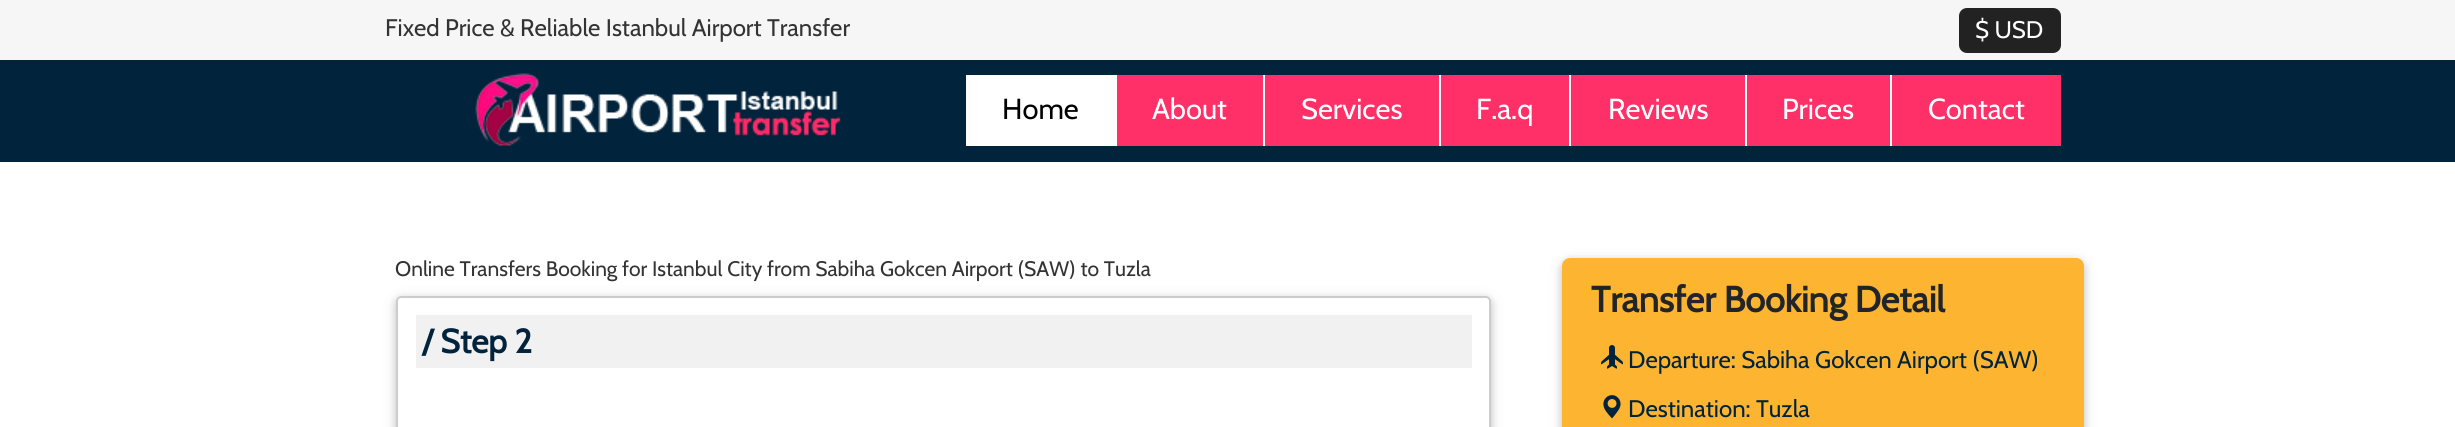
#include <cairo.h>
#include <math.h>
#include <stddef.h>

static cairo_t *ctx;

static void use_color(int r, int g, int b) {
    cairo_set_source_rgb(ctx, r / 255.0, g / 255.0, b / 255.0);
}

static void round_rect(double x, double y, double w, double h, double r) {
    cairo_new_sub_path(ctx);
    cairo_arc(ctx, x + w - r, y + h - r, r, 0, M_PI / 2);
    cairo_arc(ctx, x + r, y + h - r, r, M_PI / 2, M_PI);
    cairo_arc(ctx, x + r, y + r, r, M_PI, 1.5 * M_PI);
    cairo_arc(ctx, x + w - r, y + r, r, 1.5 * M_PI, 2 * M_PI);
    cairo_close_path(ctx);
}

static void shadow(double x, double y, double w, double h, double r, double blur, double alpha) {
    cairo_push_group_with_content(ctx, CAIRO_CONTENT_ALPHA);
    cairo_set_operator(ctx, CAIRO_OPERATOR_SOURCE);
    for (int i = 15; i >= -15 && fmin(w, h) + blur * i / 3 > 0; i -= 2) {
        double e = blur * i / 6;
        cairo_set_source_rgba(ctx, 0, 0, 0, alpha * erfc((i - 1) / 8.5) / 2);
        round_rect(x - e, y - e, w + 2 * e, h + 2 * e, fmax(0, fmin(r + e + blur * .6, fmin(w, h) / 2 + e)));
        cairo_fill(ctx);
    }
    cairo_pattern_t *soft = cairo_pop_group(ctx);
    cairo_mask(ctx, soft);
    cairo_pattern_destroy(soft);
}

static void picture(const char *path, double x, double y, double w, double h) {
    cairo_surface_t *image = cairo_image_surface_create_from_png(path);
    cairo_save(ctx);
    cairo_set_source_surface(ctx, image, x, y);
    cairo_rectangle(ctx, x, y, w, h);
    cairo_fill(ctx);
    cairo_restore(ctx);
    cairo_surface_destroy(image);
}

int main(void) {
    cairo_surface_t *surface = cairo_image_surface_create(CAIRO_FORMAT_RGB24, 2455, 427);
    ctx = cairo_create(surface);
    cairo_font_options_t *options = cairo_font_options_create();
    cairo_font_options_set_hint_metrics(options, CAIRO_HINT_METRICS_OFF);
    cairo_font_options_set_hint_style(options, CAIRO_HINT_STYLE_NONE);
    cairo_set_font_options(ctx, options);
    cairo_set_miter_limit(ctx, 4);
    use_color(255, 255, 255);
    cairo_paint(ctx);
    use_color(246, 246, 246);
    cairo_rectangle(ctx, 0, 0, 2455, 60);
    cairo_fill(ctx);
    cairo_select_font_face(ctx, "Cabin", CAIRO_FONT_SLANT_NORMAL, CAIRO_FONT_WEIGHT_NORMAL);
    cairo_set_font_size(ctx, 24);
    use_color(51, 51, 51);
    cairo_move_to(ctx, 385, 36);
    cairo_show_text(ctx, "Fixed Price & Reliable Istanbul Airport Transfer");
    use_color(34, 34, 34);
    round_rect(1960, 9, 100, 43, 7);
    cairo_fill_preserve(ctx);
    use_color(35, 35, 35);
    cairo_stroke(ctx);
    use_color(255, 255, 255);
    cairo_move_to(ctx, 1975, 38);
    cairo_show_text(ctx, "$ USD");
    use_color(1, 35, 59);
    cairo_rectangle(ctx, 0, 60, 2455, 102);
    cairo_fill(ctx);
    picture("img1.png", 475, 73, 366, 73);
    use_color(255, 255, 255);
    cairo_rectangle(ctx, 966, 75, 151, 71);
    cairo_fill(ctx);
    cairo_set_font_size(ctx, 29);
    use_color(0, 0, 0);
    cairo_move_to(ctx, 1002, 119);
    cairo_show_text(ctx, "Home");
    use_color(255, 47, 104);
    cairo_rectangle(ctx, 1117, 75, 146, 71);
    cairo_fill(ctx);
    use_color(255, 255, 255);
    cairo_move_to(ctx, 1152, 119);
    cairo_show_text(ctx, "About");
    use_color(255, 47, 104);
    cairo_rectangle(ctx, 1265, 75, 174, 71);
    cairo_fill(ctx);
    use_color(255, 255, 255);
    cairo_rectangle(ctx, 1263, 75, 2, 71);
    cairo_fill(ctx);
    cairo_move_to(ctx, 1301, 119);
    cairo_show_text(ctx, "Services");
    use_color(255, 47, 104);
    cairo_rectangle(ctx, 1441, 75, 128, 71);
    cairo_fill(ctx);
    use_color(255, 255, 255);
    cairo_rectangle(ctx, 1439, 75, 2, 71);
    cairo_fill(ctx);
    cairo_move_to(ctx, 1476, 119);
    cairo_show_text(ctx, "F.a.q");
    use_color(255, 47, 104);
    cairo_rectangle(ctx, 1571, 75, 174, 71);
    cairo_fill(ctx);
    use_color(255, 255, 255);
    cairo_rectangle(ctx, 1569, 75, 2, 71);
    cairo_fill(ctx);
    cairo_move_to(ctx, 1608, 119);
    cairo_show_text(ctx, "Reviews");
    use_color(255, 47, 104);
    cairo_rectangle(ctx, 1747, 75, 143, 71);
    cairo_fill(ctx);
    use_color(255, 255, 255);
    cairo_rectangle(ctx, 1745, 75, 2, 71);
    cairo_fill(ctx);
    cairo_move_to(ctx, 1782, 119);
    cairo_show_text(ctx, "Prices");
    use_color(255, 47, 104);
    cairo_rectangle(ctx, 1892, 75, 169, 71);
    cairo_fill(ctx);
    use_color(255, 255, 255);
    cairo_rectangle(ctx, 1890, 75, 2, 71);
    cairo_fill(ctx);
    cairo_move_to(ctx, 1928, 119);
    cairo_show_text(ctx, "Contact");
    cairo_save(ctx);
    cairo_set_fill_rule(ctx, CAIRO_FILL_RULE_EVEN_ODD);
    cairo_new_path(ctx);
    cairo_move_to(ctx, 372, 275);
    cairo_line_to(ctx, 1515, 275);
    cairo_line_to(ctx, 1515, 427);
    cairo_line_to(ctx, 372, 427);
    cairo_close_path(ctx);
    cairo_move_to(ctx, 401, 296);
    cairo_line_to(ctx, 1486, 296);
    cairo_curve_to(ctx, 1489, 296, 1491, 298, 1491, 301);
    cairo_line_to(ctx, 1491, 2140);
    cairo_curve_to(ctx, 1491, 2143, 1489, 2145, 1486, 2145);
    cairo_line_to(ctx, 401, 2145);
    cairo_curve_to(ctx, 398, 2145, 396, 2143, 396, 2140);
    cairo_line_to(ctx, 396, 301);
    cairo_curve_to(ctx, 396, 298, 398, 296, 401, 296);
    cairo_close_path(ctx);
    cairo_clip(ctx);
    use_color(0, 0, 0);
    shadow(396, 299, 1095, 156, 5, 7.5, 0.12);
    cairo_restore(ctx);
    cairo_set_font_size(ctx, 21);
    use_color(51, 51, 51);
    cairo_move_to(ctx, 395, 276);
    cairo_show_text(ctx, "Online Transfers Booking for Istanbul City from Sabiha Gokcen Airport (SAW) to Tuzla");
    cairo_save(ctx);
    cairo_set_fill_rule(ctx, CAIRO_FILL_RULE_EVEN_ODD);
    cairo_new_path(ctx);
    cairo_move_to(ctx, 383, 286);
    cairo_line_to(ctx, 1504, 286);
    cairo_line_to(ctx, 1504, 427);
    cairo_line_to(ctx, 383, 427);
    cairo_close_path(ctx);
    cairo_move_to(ctx, 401, 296);
    cairo_line_to(ctx, 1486, 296);
    cairo_curve_to(ctx, 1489, 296, 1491, 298, 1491, 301);
    cairo_line_to(ctx, 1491, 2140);
    cairo_curve_to(ctx, 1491, 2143, 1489, 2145, 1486, 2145);
    cairo_line_to(ctx, 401, 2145);
    cairo_curve_to(ctx, 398, 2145, 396, 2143, 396, 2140);
    cairo_line_to(ctx, 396, 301);
    cairo_curve_to(ctx, 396, 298, 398, 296, 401, 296);
    cairo_close_path(ctx);
    cairo_clip(ctx);
    use_color(0, 0, 0);
    shadow(396, 299, 1095, 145, 5, 4, 0.16);
    cairo_restore(ctx);
    round_rect(397, 297, 1093, 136, 4);
    use_color(204, 204, 204);
    cairo_stroke(ctx);
    use_color(241, 241, 241);
    cairo_rectangle(ctx, 416, 315, 1056, 53);
    cairo_fill(ctx);
    cairo_select_font_face(ctx, "Cabin", CAIRO_FONT_SLANT_NORMAL, CAIRO_FONT_WEIGHT_BOLD);
    cairo_set_font_size(ctx, 33.5);
    use_color(1, 35, 59);
    cairo_move_to(ctx, 422, 353);
    cairo_show_text(ctx, "/ Step 2");
    use_color(0, 0, 0);
    shadow(1562, 261, 522, 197, 8, 7.5, 0.12);
    shadow(1562, 261, 522, 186, 8, 4, 0.16);
    use_color(253, 181, 49);
    round_rect(1562, 258, 522, 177, 8);
    cairo_fill(ctx);
    cairo_set_font_size(ctx, 36);
    use_color(33, 37, 41);
    cairo_move_to(ctx, 1591, 312);
    cairo_show_text(ctx, "Transfer Booking Detail");
    picture("img2.png", 1601, 345, 22, 24);
    cairo_select_font_face(ctx, "Cabin", CAIRO_FONT_SLANT_NORMAL, CAIRO_FONT_WEIGHT_NORMAL);
    cairo_set_font_size(ctx, 24);
    use_color(1, 35, 59);
    cairo_move_to(ctx, 1628, 368);
    cairo_show_text(ctx, "Departure: Sabiha Gokcen Airport (SAW)");
    picture("img3.png", 1603, 395, 18, 24);
    cairo_move_to(ctx, 1628, 417);
    cairo_show_text(ctx, "Destination: Tuzla");
    cairo_surface_write_to_png(surface, "result.png");
    cairo_font_options_destroy(options);
    cairo_destroy(ctx);
    cairo_surface_destroy(surface);
    return 0;
}
